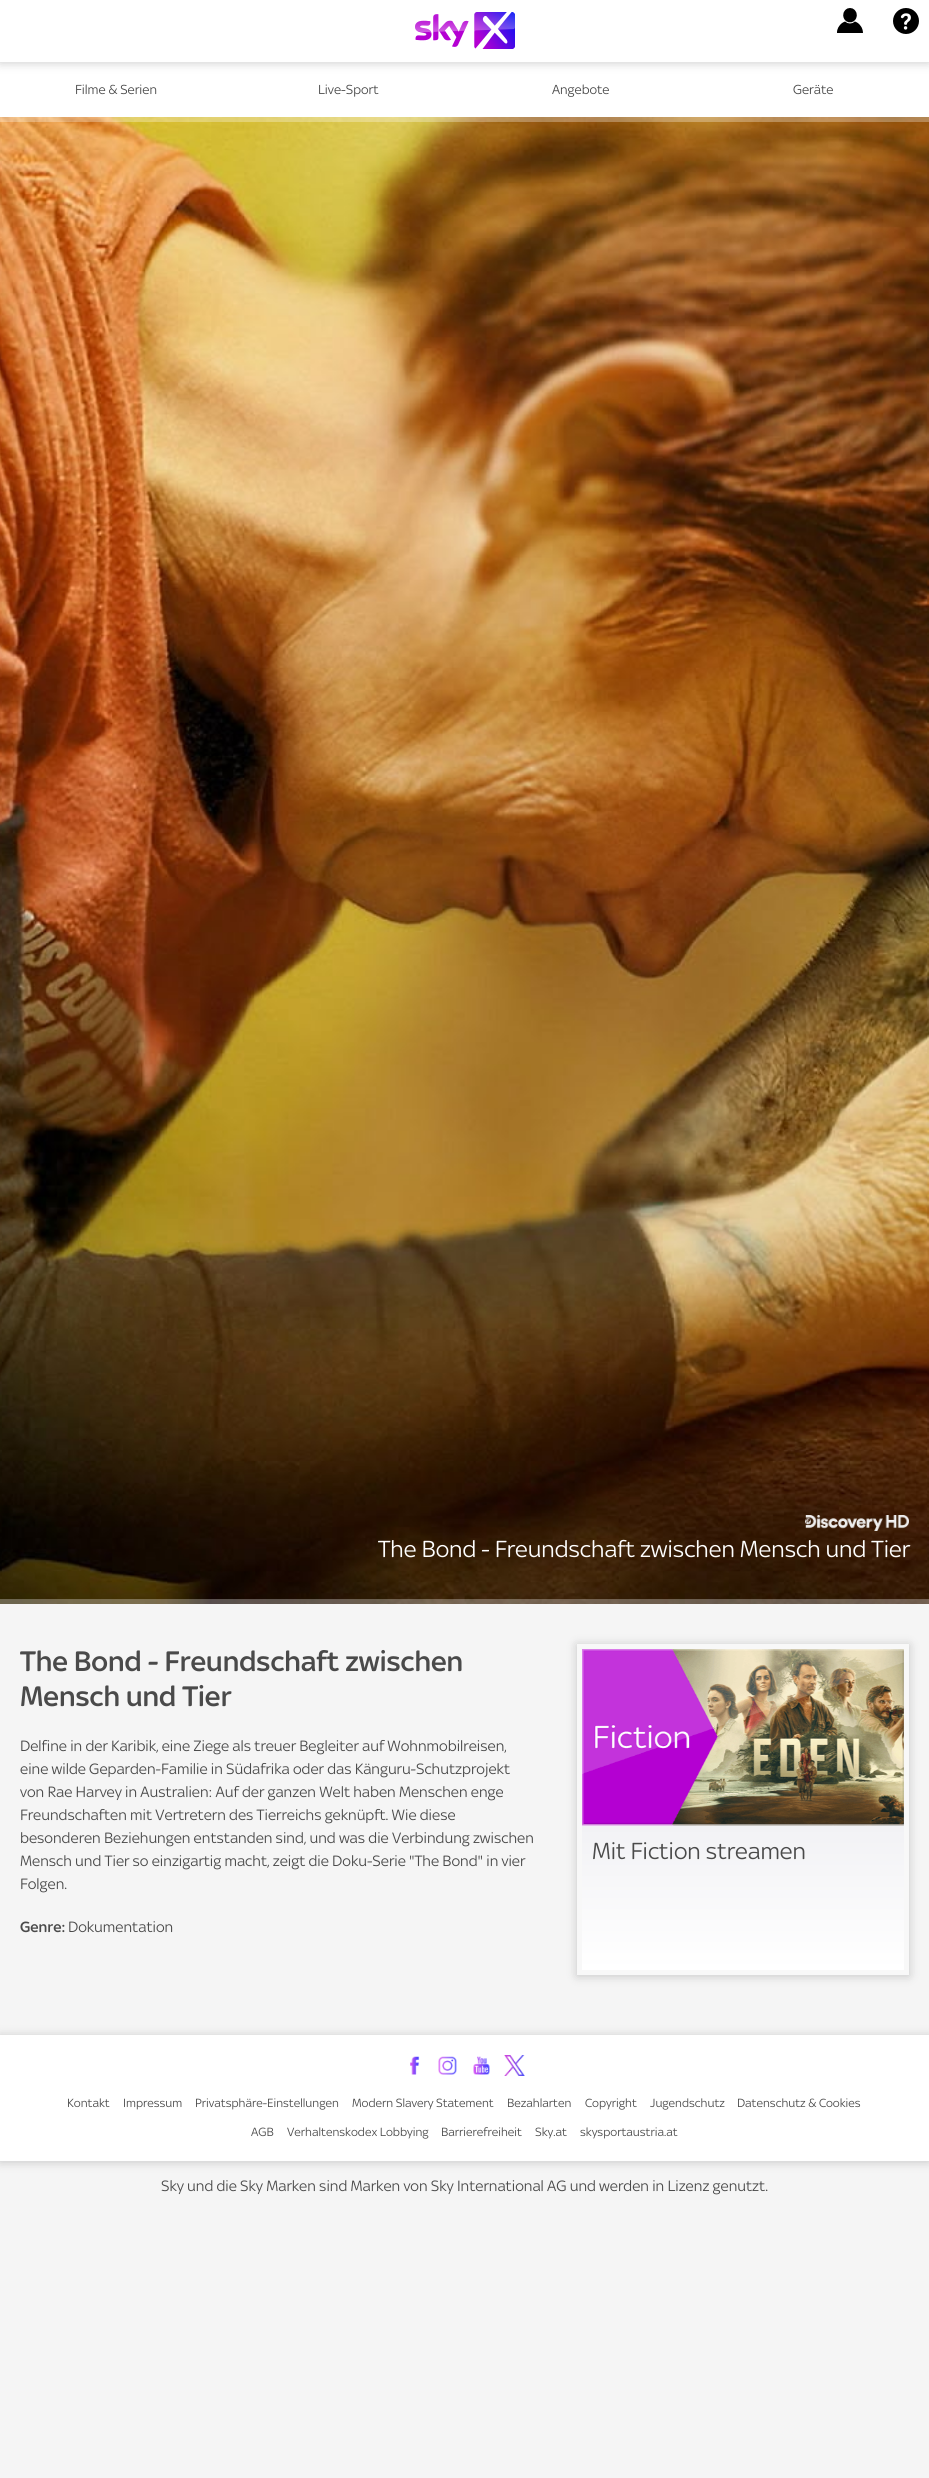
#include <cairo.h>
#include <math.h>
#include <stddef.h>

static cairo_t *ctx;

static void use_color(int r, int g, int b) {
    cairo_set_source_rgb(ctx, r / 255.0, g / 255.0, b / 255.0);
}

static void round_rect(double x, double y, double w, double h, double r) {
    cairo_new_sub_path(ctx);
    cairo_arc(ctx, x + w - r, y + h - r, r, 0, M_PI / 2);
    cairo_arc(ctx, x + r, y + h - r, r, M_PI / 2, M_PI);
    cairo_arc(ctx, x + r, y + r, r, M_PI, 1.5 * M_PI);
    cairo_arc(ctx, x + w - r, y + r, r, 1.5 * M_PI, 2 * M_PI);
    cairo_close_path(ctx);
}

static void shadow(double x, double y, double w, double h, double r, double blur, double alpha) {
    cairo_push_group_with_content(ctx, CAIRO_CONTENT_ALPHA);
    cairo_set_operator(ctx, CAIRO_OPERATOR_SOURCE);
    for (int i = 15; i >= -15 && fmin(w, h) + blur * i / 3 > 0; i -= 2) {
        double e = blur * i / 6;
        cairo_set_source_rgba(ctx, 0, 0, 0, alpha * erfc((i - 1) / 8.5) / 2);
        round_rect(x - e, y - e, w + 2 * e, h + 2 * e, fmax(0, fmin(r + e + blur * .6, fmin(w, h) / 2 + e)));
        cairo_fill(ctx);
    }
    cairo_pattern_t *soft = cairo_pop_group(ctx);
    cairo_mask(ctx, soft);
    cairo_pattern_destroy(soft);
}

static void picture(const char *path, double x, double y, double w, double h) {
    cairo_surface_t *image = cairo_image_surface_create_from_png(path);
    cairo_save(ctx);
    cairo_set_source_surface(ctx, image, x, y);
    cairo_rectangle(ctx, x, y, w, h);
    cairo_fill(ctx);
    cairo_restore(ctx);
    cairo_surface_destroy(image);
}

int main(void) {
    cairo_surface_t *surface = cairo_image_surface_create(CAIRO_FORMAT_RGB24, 929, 2478);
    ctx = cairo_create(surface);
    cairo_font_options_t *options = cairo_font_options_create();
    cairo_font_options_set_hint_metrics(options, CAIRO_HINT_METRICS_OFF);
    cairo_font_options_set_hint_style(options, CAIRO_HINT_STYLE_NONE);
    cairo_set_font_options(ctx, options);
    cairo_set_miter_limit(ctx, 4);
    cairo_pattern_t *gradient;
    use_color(245, 245, 245);
    cairo_paint(ctx);
    use_color(255, 255, 255);
    cairo_rectangle(ctx, 0, 62, 929, 55);
    cairo_fill(ctx);
    use_color(0, 0, 0);
    shadow(0, 1, 929, 62, 0, 5, 0.2);
    use_color(255, 255, 255);
    cairo_rectangle(ctx, 0, 0, 929, 62);
    cairo_fill(ctx);
    picture("img1.png", 415, 12, 100, 37);
    picture("img2.png", 837, 8, 26, 25);
    picture("img3.png", 893, 8, 26, 26);
    cairo_select_font_face(ctx, "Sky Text", CAIRO_FONT_SLANT_NORMAL, CAIRO_FONT_WEIGHT_NORMAL);
    cairo_set_font_size(ctx, 14);
    use_color(74, 74, 74);
    cairo_move_to(ctx, 75, 94);
    cairo_show_text(ctx, "Filme & Serien");
    cairo_move_to(ctx, 318, 94);
    cairo_show_text(ctx, "Live-Sport");
    cairo_move_to(ctx, 552, 94);
    cairo_show_text(ctx, "Angebote");
    cairo_move_to(ctx, 793, 94);
    cairo_show_text(ctx, "Geräte");
    picture("img4.png", 0, 117, 929, 1487);
    cairo_set_source_rgba(ctx, 1, 1, 1, 0.3);
    cairo_rectangle(ctx, 0, 117, 929, 5);
    cairo_fill(ctx);
    picture("img5.png", 805, 1515, 104, 16);
    cairo_set_font_size(ctx, 24.9);
    use_color(255, 255, 255);
    cairo_move_to(ctx, 378, 1557);
    cairo_show_text(ctx, "The Bond - Freundschaft zwischen Mensch und Tier");
    cairo_set_source_rgba(ctx, 1, 1, 1, 0.3);
    cairo_rectangle(ctx, 0, 1599, 929, 5);
    cairo_fill(ctx);
    cairo_select_font_face(ctx, "Sky Text Medium", CAIRO_FONT_SLANT_NORMAL, CAIRO_FONT_WEIGHT_NORMAL);
    cairo_set_font_size(ctx, 30.25);
    use_color(74, 74, 74);
    cairo_move_to(ctx, 20, 1671);
    cairo_show_text(ctx, "The Bond - Freundschaft zwischen");
    cairo_move_to(ctx, 20, 1706);
    cairo_show_text(ctx, "Mensch und Tier");
    cairo_select_font_face(ctx, "Sky Text", CAIRO_FONT_SLANT_NORMAL, CAIRO_FONT_WEIGHT_NORMAL);
    cairo_set_font_size(ctx, 16);
    cairo_move_to(ctx, 20, 1751);
    cairo_show_text(ctx, "Delfine in der Karibik, eine Ziege als treuer Begleiter auf Wohnmobilreisen,");
    cairo_move_to(ctx, 20, 1774);
    cairo_show_text(ctx, "eine wilde Geparden-Familie in Südafrika oder das Känguru-Schutzprojekt");
    cairo_move_to(ctx, 20, 1797);
    cairo_show_text(ctx, "von Rae Harvey in Australien: Auf der ganzen Welt haben Menschen enge");
    cairo_move_to(ctx, 20, 1820);
    cairo_show_text(ctx, "Freundschaften mit Vertretern des Tierreichs geknüpft. Wie diese");
    cairo_move_to(ctx, 20, 1843);
    cairo_show_text(ctx, "besonderen Beziehungen entstanden sind, und was die Verbindung zwischen");
    cairo_move_to(ctx, 20, 1866);
    cairo_show_text(ctx, "Mensch und Tier so einzigartig macht, zeigt die Doku-Serie \"The Bond\" in vier");
    cairo_move_to(ctx, 20, 1889);
    cairo_show_text(ctx, "Folgen.");
    cairo_select_font_face(ctx, "Sky Text Medium", CAIRO_FONT_SLANT_NORMAL, CAIRO_FONT_WEIGHT_NORMAL);
    cairo_move_to(ctx, 20, 1932);
    cairo_show_text(ctx, "Genre:");
    cairo_select_font_face(ctx, "Sky Text", CAIRO_FONT_SLANT_NORMAL, CAIRO_FONT_WEIGHT_NORMAL);
    cairo_move_to(ctx, 68, 1932);
    cairo_show_text(ctx, "Dokumentation");
    use_color(0, 0, 0);
    shadow(577, 1645, 332, 331, 0, 5, 0.2);
    use_color(248, 248, 248);
    cairo_rectangle(ctx, 577, 1644, 332, 331);
    cairo_fill(ctx);
    picture("img6.png", 582, 1649, 322, 177);
    gradient = cairo_pattern_create_linear(743, 1826, 743, 1970);
    cairo_pattern_add_color_stop_rgba(gradient, 0, 0.949, 0.949, 0.961, 1);
    cairo_pattern_add_color_stop_rgba(gradient, 1, 1, 1, 1, 1);
    cairo_set_source(ctx, gradient);
    cairo_pattern_destroy(gradient);
    cairo_rectangle(ctx, 582, 1826, 322, 144);
    cairo_fill(ctx);
    cairo_set_font_size(ctx, 24.9);
    use_color(74, 74, 74);
    cairo_move_to(ctx, 592, 1859);
    cairo_show_text(ctx, "Mit Fiction streamen");
    use_color(0, 0, 0);
    shadow(0, 2036, 929, 126, 0, 5, 0.2);
    use_color(255, 255, 255);
    cairo_rectangle(ctx, 0, 2035, 929, 126);
    cairo_fill(ctx);
    picture("img7.png", 410, 2056, 10, 19);
    picture("img8.png", 438, 2056, 19, 19);
    picture("img9.png", 473, 2056, 17, 19);
    picture("img10.png", 504, 2055, 21, 21);
    cairo_set_font_size(ctx, 12.75);
    use_color(74, 74, 74);
    cairo_move_to(ctx, 67, 2107);
    cairo_show_text(ctx, "Kontakt");
    cairo_move_to(ctx, 123, 2107);
    cairo_show_text(ctx, "Impressum");
    cairo_move_to(ctx, 195, 2107);
    cairo_show_text(ctx, "Privatsphäre-Einstellungen");
    cairo_move_to(ctx, 352, 2107);
    cairo_show_text(ctx, "Modern Slavery Statement");
    cairo_move_to(ctx, 507, 2107);
    cairo_show_text(ctx, "Bezahlarten");
    cairo_move_to(ctx, 585, 2107);
    cairo_show_text(ctx, "Copyright");
    cairo_move_to(ctx, 650, 2107);
    cairo_show_text(ctx, "Jugendschutz");
    cairo_move_to(ctx, 737, 2107);
    cairo_show_text(ctx, "Datenschutz & Cookies");
    cairo_move_to(ctx, 251, 2136);
    cairo_show_text(ctx, "AGB");
    cairo_move_to(ctx, 287, 2136);
    cairo_show_text(ctx, "Verhaltenskodex Lobbying");
    cairo_move_to(ctx, 441, 2136);
    cairo_show_text(ctx, "Barrierefreiheit");
    cairo_move_to(ctx, 535, 2136);
    cairo_show_text(ctx, "Sky.at");
    cairo_move_to(ctx, 580, 2136);
    cairo_show_text(ctx, "skysportaustria.at");
    cairo_set_font_size(ctx, 16);
    cairo_move_to(ctx, 161, 2191);
    cairo_show_text(ctx, "Sky und die Sky Marken sind Marken von Sky International AG und werden in Lizenz genutzt.");
    cairo_surface_write_to_png(surface, "result.png");
    cairo_font_options_destroy(options);
    cairo_destroy(ctx);
    cairo_surface_destroy(surface);
    return 0;
}
